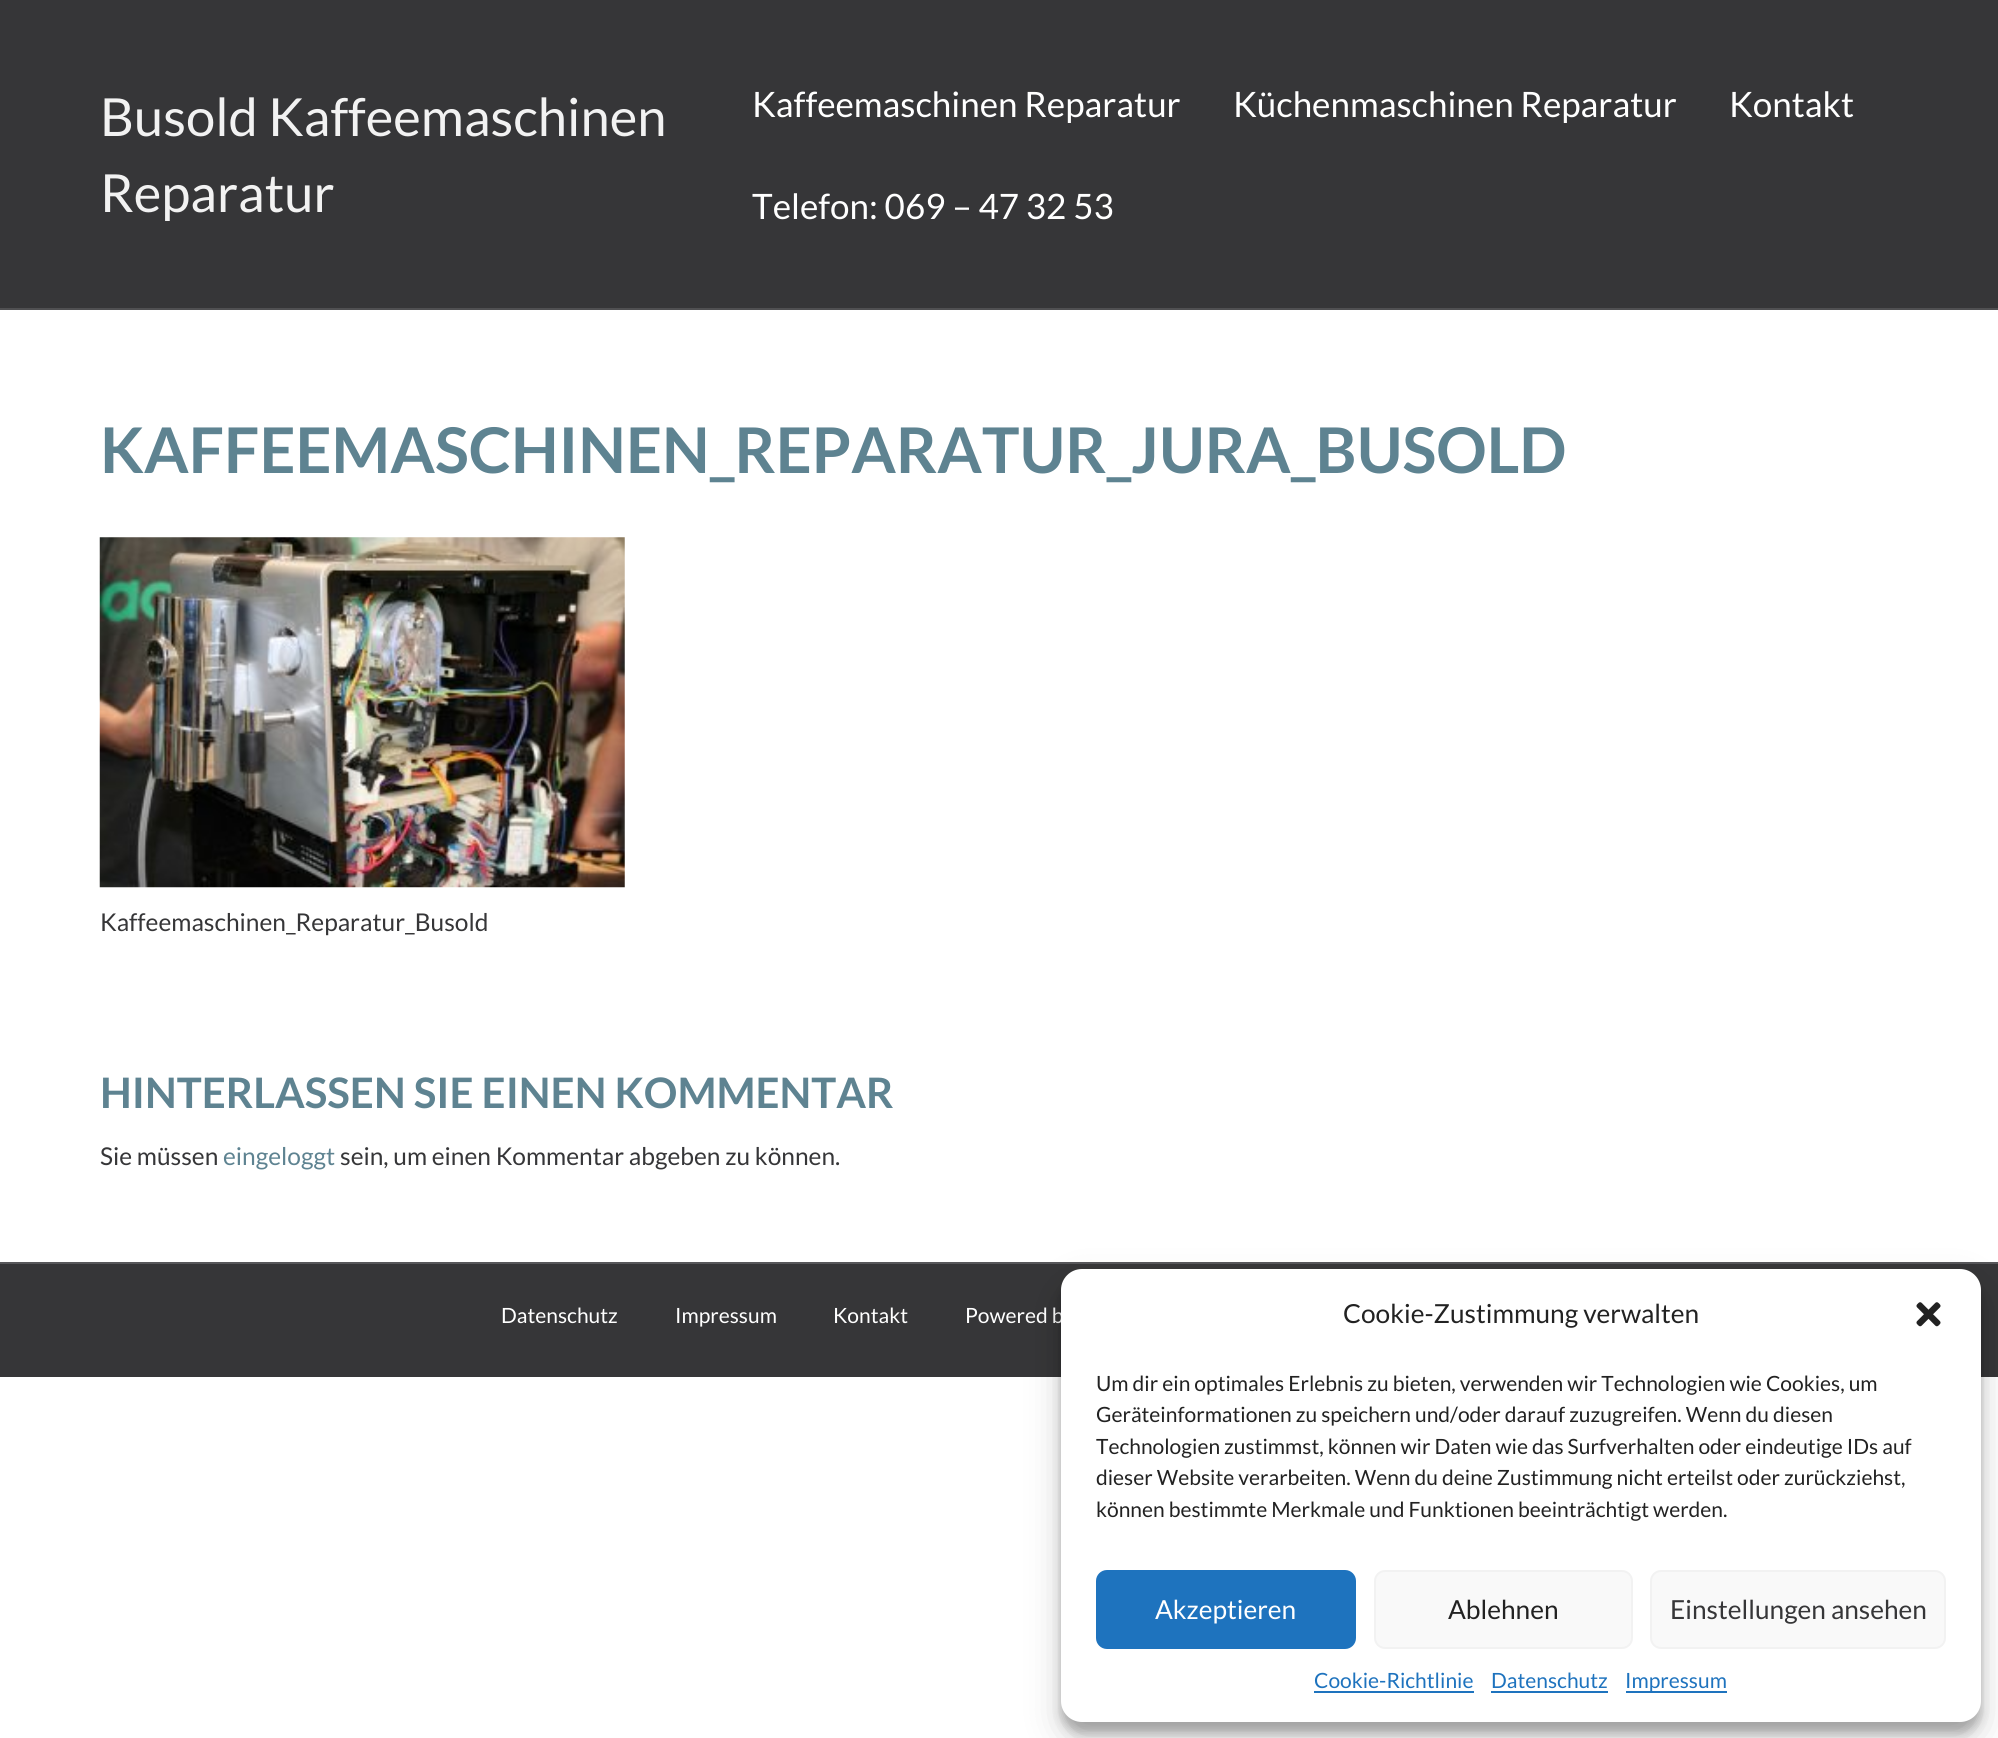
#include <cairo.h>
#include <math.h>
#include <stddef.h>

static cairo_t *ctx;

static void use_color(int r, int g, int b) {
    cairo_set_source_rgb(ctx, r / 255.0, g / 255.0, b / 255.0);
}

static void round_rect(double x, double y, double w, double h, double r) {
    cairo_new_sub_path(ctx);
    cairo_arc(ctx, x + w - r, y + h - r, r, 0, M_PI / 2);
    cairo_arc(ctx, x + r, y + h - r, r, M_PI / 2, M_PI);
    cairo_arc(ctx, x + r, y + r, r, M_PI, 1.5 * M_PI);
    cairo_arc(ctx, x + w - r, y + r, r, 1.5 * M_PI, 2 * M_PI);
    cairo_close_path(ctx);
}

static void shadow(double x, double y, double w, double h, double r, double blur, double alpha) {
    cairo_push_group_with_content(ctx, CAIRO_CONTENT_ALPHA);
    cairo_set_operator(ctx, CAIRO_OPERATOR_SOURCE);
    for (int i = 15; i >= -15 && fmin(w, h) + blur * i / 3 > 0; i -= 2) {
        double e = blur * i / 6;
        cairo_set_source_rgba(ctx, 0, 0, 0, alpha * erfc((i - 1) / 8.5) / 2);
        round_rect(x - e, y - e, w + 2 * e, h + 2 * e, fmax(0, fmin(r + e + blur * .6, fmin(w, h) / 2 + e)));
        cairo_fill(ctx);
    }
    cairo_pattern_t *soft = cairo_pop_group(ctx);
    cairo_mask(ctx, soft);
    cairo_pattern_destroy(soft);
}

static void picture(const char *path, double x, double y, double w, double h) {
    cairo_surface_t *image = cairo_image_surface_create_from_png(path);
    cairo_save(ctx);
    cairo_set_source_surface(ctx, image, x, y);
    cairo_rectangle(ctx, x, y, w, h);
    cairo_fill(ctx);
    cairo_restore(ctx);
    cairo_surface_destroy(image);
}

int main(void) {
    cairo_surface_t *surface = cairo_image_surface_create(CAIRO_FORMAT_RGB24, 1998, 1738);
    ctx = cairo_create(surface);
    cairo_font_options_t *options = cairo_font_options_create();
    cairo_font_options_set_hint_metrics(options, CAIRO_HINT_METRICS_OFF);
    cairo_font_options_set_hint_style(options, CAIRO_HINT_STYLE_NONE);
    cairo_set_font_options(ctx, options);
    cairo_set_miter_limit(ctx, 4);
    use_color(255, 255, 255);
    cairo_paint(ctx);
    use_color(54, 54, 56);
    cairo_rectangle(ctx, 0, 0, 1998, 308);
    cairo_fill(ctx);
    use_color(80, 80, 82);
    cairo_rectangle(ctx, 0, 308, 1998, 2);
    cairo_fill(ctx);
    cairo_select_font_face(ctx, "Lato", CAIRO_FONT_SLANT_NORMAL, CAIRO_FONT_WEIGHT_NORMAL);
    cairo_set_font_size(ctx, 52.5);
    use_color(242, 242, 242);
    cairo_move_to(ctx, 100, 136);
    cairo_show_text(ctx, "Busold Kaffeemaschinen");
    cairo_move_to(ctx, 100, 212);
    cairo_show_text(ctx, "Reparatur");
    cairo_set_font_size(ctx, 35);
    use_color(255, 255, 255);
    cairo_move_to(ctx, 752, 117);
    cairo_show_text(ctx, "Kaffeemaschinen Reparatur");
    cairo_move_to(ctx, 1233, 117);
    cairo_show_text(ctx, "Küchenmaschinen Reparatur");
    cairo_move_to(ctx, 1729, 117);
    cairo_show_text(ctx, "Kontakt");
    cairo_move_to(ctx, 752, 219);
    cairo_show_text(ctx, "Telefon: 069 – 47 32 53");
    cairo_select_font_face(ctx, "Lato", CAIRO_FONT_SLANT_NORMAL, CAIRO_FONT_WEIGHT_BOLD);
    cairo_set_font_size(ctx, 63);
    use_color(94, 131, 145);
    cairo_move_to(ctx, 100, 473);
    cairo_show_text(ctx, "KAFFEEMASCHINEN_REPARATUR_JURA_BUSOLD");
    picture("img1.png", 99, 537, 526, 351);
    cairo_select_font_face(ctx, "Lato", CAIRO_FONT_SLANT_NORMAL, CAIRO_FONT_WEIGHT_NORMAL);
    cairo_set_font_size(ctx, 24.5);
    use_color(54, 54, 56);
    cairo_move_to(ctx, 100, 931);
    cairo_show_text(ctx, "Kaffeemaschinen_Reparatur_Busold");
    cairo_select_font_face(ctx, "Lato", CAIRO_FONT_SLANT_NORMAL, CAIRO_FONT_WEIGHT_BOLD);
    cairo_set_font_size(ctx, 42);
    use_color(94, 131, 145);
    cairo_move_to(ctx, 100, 1108);
    cairo_show_text(ctx, "HINTERLASSEN SIE EINEN KOMMENTAR");
    cairo_select_font_face(ctx, "Lato", CAIRO_FONT_SLANT_NORMAL, CAIRO_FONT_WEIGHT_NORMAL);
    cairo_set_font_size(ctx, 24.5);
    use_color(54, 54, 56);
    cairo_move_to(ctx, 100, 1165);
    cairo_show_text(ctx, "Sie müssen");
    use_color(94, 131, 145);
    cairo_move_to(ctx, 223, 1165);
    cairo_show_text(ctx, "eingeloggt");
    use_color(54, 54, 56);
    cairo_move_to(ctx, 340, 1165);
    cairo_show_text(ctx, "sein, um einen Kommentar abgeben zu können.");
    cairo_rectangle(ctx, 0, 1264, 1998, 113);
    cairo_fill(ctx);
    use_color(87, 87, 90);
    cairo_rectangle(ctx, 0, 1262, 1998, 2);
    cairo_fill(ctx);
    cairo_set_font_size(ctx, 21);
    use_color(255, 255, 255);
    cairo_move_to(ctx, 501, 1323);
    cairo_show_text(ctx, "Datenschutz");
    cairo_move_to(ctx, 675, 1323);
    cairo_show_text(ctx, "Impressum");
    cairo_move_to(ctx, 833, 1323);
    cairo_show_text(ctx, "Kontakt");
    cairo_move_to(ctx, 965, 1323);
    cairo_show_text(ctx, "Powered b");
    use_color(0, 0, 0);
    shadow(1061, 1279, 920, 454, 21, 5, 0.23);
    shadow(1061, 1286, 920, 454, 21, 17.5, 0.19);
    use_color(255, 255, 255);
    round_rect(1061, 1269, 920, 453, 21);
    cairo_fill(ctx);
    cairo_set_font_size(ctx, 26.25);
    use_color(34, 34, 34);
    cairo_move_to(ctx, 1343, 1323);
    cairo_show_text(ctx, "Cookie-Zustimmung verwalten");
    picture("img2.png", 1916, 1302, 25, 25);
    cairo_set_font_size(ctx, 21);
    cairo_move_to(ctx, 1096, 1391);
    cairo_show_text(ctx, "Um dir ein optimales Erlebnis zu bieten, verwenden wir Technologien wie Cookies, um");
    cairo_move_to(ctx, 1096, 1422);
    cairo_show_text(ctx, "Geräteinformationen zu speichern und/oder darauf zuzugreifen. Wenn du diesen");
    cairo_move_to(ctx, 1096, 1454);
    cairo_show_text(ctx, "Technologien zustimmst, können wir Daten wie das Surfverhalten oder eindeutige IDs auf");
    cairo_move_to(ctx, 1096, 1485);
    cairo_show_text(ctx, "dieser Website verarbeiten. Wenn du deine Zustimmung nicht erteilst oder zurückziehst,");
    cairo_move_to(ctx, 1096, 1517);
    cairo_show_text(ctx, "können bestimmte Merkmale und Funktionen beeinträchtigt werden.");
    use_color(30, 115, 190);
    round_rect(1097, 1571, 258, 77, 10);
    cairo_fill_preserve(ctx);
    cairo_stroke(ctx);
    cairo_set_font_size(ctx, 26.25);
    use_color(255, 255, 255);
    cairo_move_to(ctx, 1155, 1619);
    cairo_show_text(ctx, "Akzeptieren");
    use_color(249, 249, 249);
    round_rect(1375, 1571, 257, 77, 10);
    cairo_fill_preserve(ctx);
    use_color(242, 242, 242);
    cairo_stroke(ctx);
    use_color(34, 34, 34);
    cairo_move_to(ctx, 1448, 1619);
    cairo_show_text(ctx, "Ablehnen");
    use_color(249, 249, 249);
    round_rect(1651, 1571, 294, 77, 10);
    cairo_fill_preserve(ctx);
    use_color(242, 242, 242);
    cairo_stroke(ctx);
    use_color(54, 54, 56);
    cairo_move_to(ctx, 1670, 1619);
    cairo_show_text(ctx, "Einstellungen ansehen");
    cairo_set_font_size(ctx, 21);
    use_color(30, 115, 190);
    cairo_move_to(ctx, 1314, 1688);
    cairo_show_text(ctx, "Cookie-Richtlinie");
    cairo_rectangle(ctx, 1314, 1691, 160, 2);
    cairo_fill(ctx);
    cairo_move_to(ctx, 1491, 1688);
    cairo_show_text(ctx, "Datenschutz");
    cairo_rectangle(ctx, 1491, 1691, 117, 2);
    cairo_fill(ctx);
    cairo_rectangle(ctx, 1626, 1691, 101, 2);
    cairo_fill(ctx);
    cairo_move_to(ctx, 1625, 1688);
    cairo_show_text(ctx, "Impressum");
    cairo_surface_write_to_png(surface, "result.png");
    cairo_font_options_destroy(options);
    cairo_destroy(ctx);
    cairo_surface_destroy(surface);
    return 0;
}
